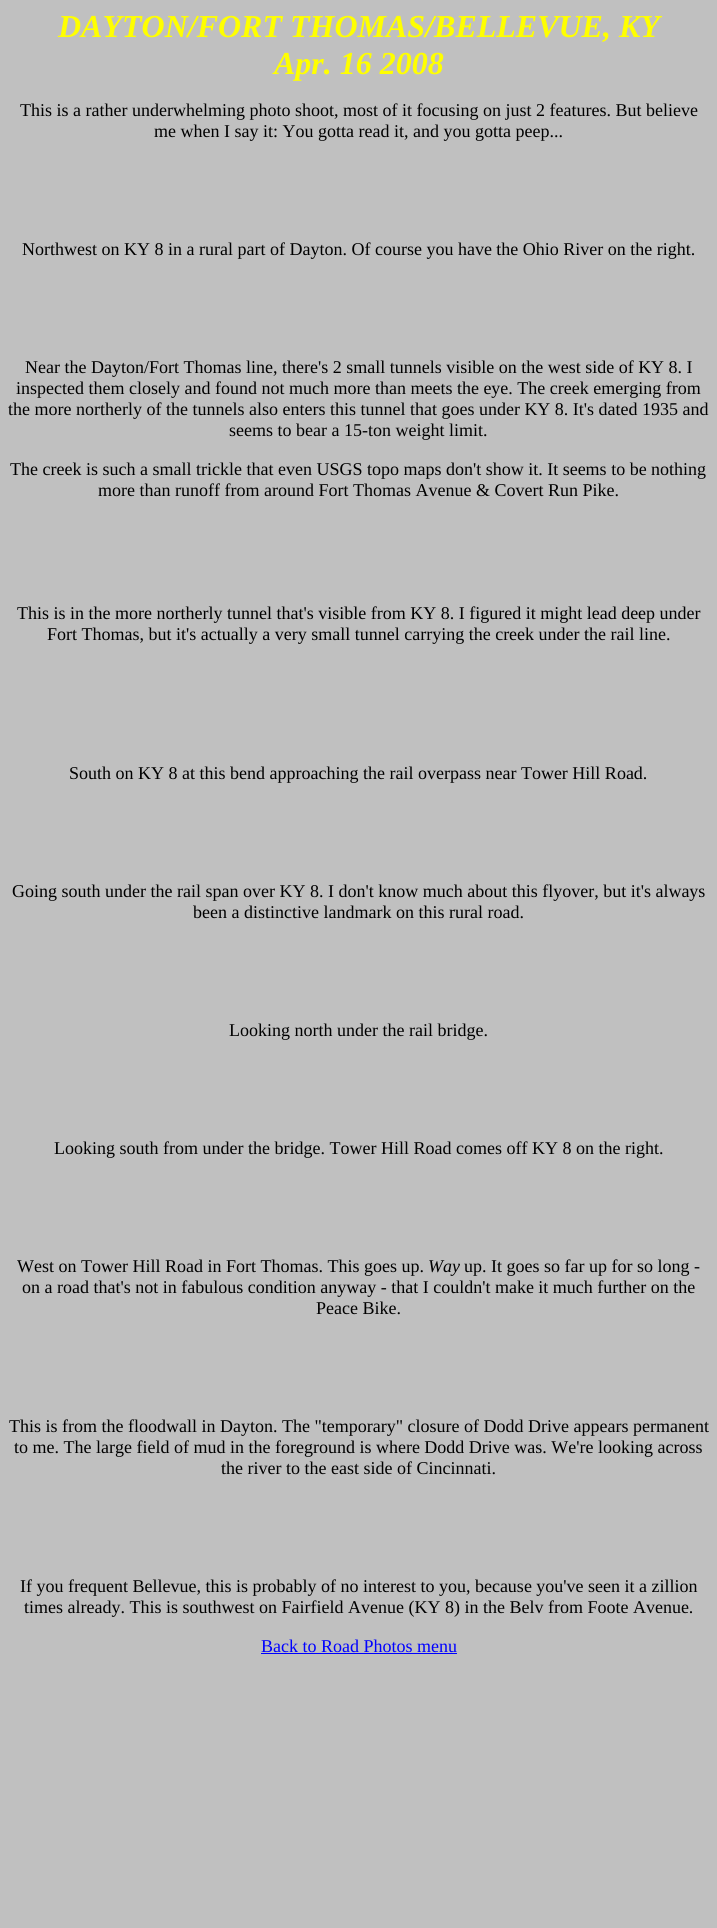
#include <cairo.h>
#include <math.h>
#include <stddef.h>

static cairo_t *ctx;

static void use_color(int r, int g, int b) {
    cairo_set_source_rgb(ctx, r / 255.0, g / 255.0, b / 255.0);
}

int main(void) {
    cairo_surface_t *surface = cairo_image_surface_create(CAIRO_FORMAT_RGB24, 717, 1928);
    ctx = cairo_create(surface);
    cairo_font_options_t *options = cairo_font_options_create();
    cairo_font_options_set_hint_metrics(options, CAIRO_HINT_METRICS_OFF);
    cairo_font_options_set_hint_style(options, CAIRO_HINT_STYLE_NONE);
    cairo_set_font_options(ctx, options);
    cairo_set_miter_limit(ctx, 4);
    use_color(192, 192, 192);
    cairo_paint(ctx);
    cairo_select_font_face(ctx, "Liberation Serif", CAIRO_FONT_SLANT_ITALIC, CAIRO_FONT_WEIGHT_BOLD);
    cairo_set_font_size(ctx, 32);
    use_color(255, 255, 0);
    cairo_move_to(ctx, 58, 37);
    cairo_show_text(ctx, "DAYTON/FORT THOMAS/BELLEVUE, KY");
    cairo_move_to(ctx, 274, 74);
    cairo_show_text(ctx, "Apr. 16 2008");
    cairo_select_font_face(ctx, "Liberation Serif", CAIRO_FONT_SLANT_NORMAL, CAIRO_FONT_WEIGHT_NORMAL);
    cairo_set_font_size(ctx, 18);
    use_color(0, 0, 0);
    cairo_move_to(ctx, 20, 116);
    cairo_show_text(ctx, "This is a rather underwhelming photo shoot, most of it focusing on just 2 features. But believe");
    cairo_move_to(ctx, 154, 137);
    cairo_show_text(ctx, "me when I say it: You gotta read it, and you gotta peep...");
    cairo_move_to(ctx, 22, 255);
    cairo_show_text(ctx, "Northwest on KY 8 in a rural part of Dayton. Of course you have the Ohio River on the right.");
    cairo_move_to(ctx, 25, 373);
    cairo_show_text(ctx, "Near the Dayton/Fort Thomas line, there's 2 small tunnels visible on the west side of KY 8. I");
    cairo_move_to(ctx, 16, 394);
    cairo_show_text(ctx, "inspected them closely and found not much more than meets the eye. The creek emerging from");
    cairo_move_to(ctx, 8, 415);
    cairo_show_text(ctx, "the more northerly of the tunnels also enters this tunnel that goes under KY 8. It's dated 1935 and");
    cairo_move_to(ctx, 229, 436);
    cairo_show_text(ctx, "seems to bear a 15-ton weight limit.");
    cairo_move_to(ctx, 10, 475);
    cairo_show_text(ctx, "The creek is such a small trickle that even USGS topo maps don't show it. It seems to be nothing");
    cairo_move_to(ctx, 98, 496);
    cairo_show_text(ctx, "more than runoff from around Fort Thomas Avenue & Covert Run Pike.");
    cairo_move_to(ctx, 17, 619);
    cairo_show_text(ctx, "This is in the more northerly tunnel that's visible from KY 8. I figured it might lead deep under");
    cairo_move_to(ctx, 47, 640);
    cairo_show_text(ctx, "Fort Thomas, but it's actually a very small tunnel carrying the creek under the rail line.");
    cairo_move_to(ctx, 69, 779);
    cairo_show_text(ctx, "South on KY 8 at this bend approaching the rail overpass near Tower Hill Road.");
    cairo_move_to(ctx, 12, 897);
    cairo_show_text(ctx, "Going south under the rail span over KY 8. I don't know much about this flyover, but it's always");
    cairo_move_to(ctx, 193, 918);
    cairo_show_text(ctx, "been a distinctive landmark on this rural road.");
    cairo_move_to(ctx, 229, 1036);
    cairo_show_text(ctx, "Looking north under the rail bridge.");
    cairo_move_to(ctx, 54, 1154);
    cairo_show_text(ctx, "Looking south from under the bridge. Tower Hill Road comes off KY 8 on the right.");
    cairo_move_to(ctx, 17, 1272);
    cairo_show_text(ctx, "West on Tower Hill Road in Fort Thomas. This goes up.");
    cairo_select_font_face(ctx, "Liberation Serif", CAIRO_FONT_SLANT_ITALIC, CAIRO_FONT_WEIGHT_NORMAL);
    cairo_move_to(ctx, 428, 1272);
    cairo_show_text(ctx, "Way");
    cairo_select_font_face(ctx, "Liberation Serif", CAIRO_FONT_SLANT_NORMAL, CAIRO_FONT_WEIGHT_NORMAL);
    cairo_move_to(ctx, 464, 1272);
    cairo_show_text(ctx, "up. It goes so far up for so long -");
    cairo_move_to(ctx, 22, 1293);
    cairo_show_text(ctx, "on a road that's not in fabulous condition anyway - that I couldn't make it much further on the");
    cairo_move_to(ctx, 316, 1314);
    cairo_show_text(ctx, "Peace Bike.");
    cairo_move_to(ctx, 9, 1432);
    cairo_show_text(ctx, "This is from the floodwall in Dayton. The \"temporary\" closure of Dodd Drive appears permanent");
    cairo_move_to(ctx, 14, 1453);
    cairo_show_text(ctx, "to me. The large field of mud in the foreground is where Dodd Drive was. We're looking across");
    cairo_move_to(ctx, 221, 1474);
    cairo_show_text(ctx, "the river to the east side of Cincinnati.");
    cairo_move_to(ctx, 20, 1592);
    cairo_show_text(ctx, "If you frequent Bellevue, this is probably of no interest to you, because you've seen it a zillion");
    cairo_move_to(ctx, 24, 1613);
    cairo_show_text(ctx, "times already. This is southwest on Fairfield Avenue (KY 8) in the Belv from Foote Avenue.");
    use_color(0, 0, 255);
    cairo_move_to(ctx, 261, 1652);
    cairo_show_text(ctx, "Back to Road Photos menu");
    cairo_rectangle(ctx, 261, 1653, 196, 1);
    cairo_fill(ctx);
    cairo_surface_write_to_png(surface, "result.png");
    cairo_font_options_destroy(options);
    cairo_destroy(ctx);
    cairo_surface_destroy(surface);
    return 0;
}
